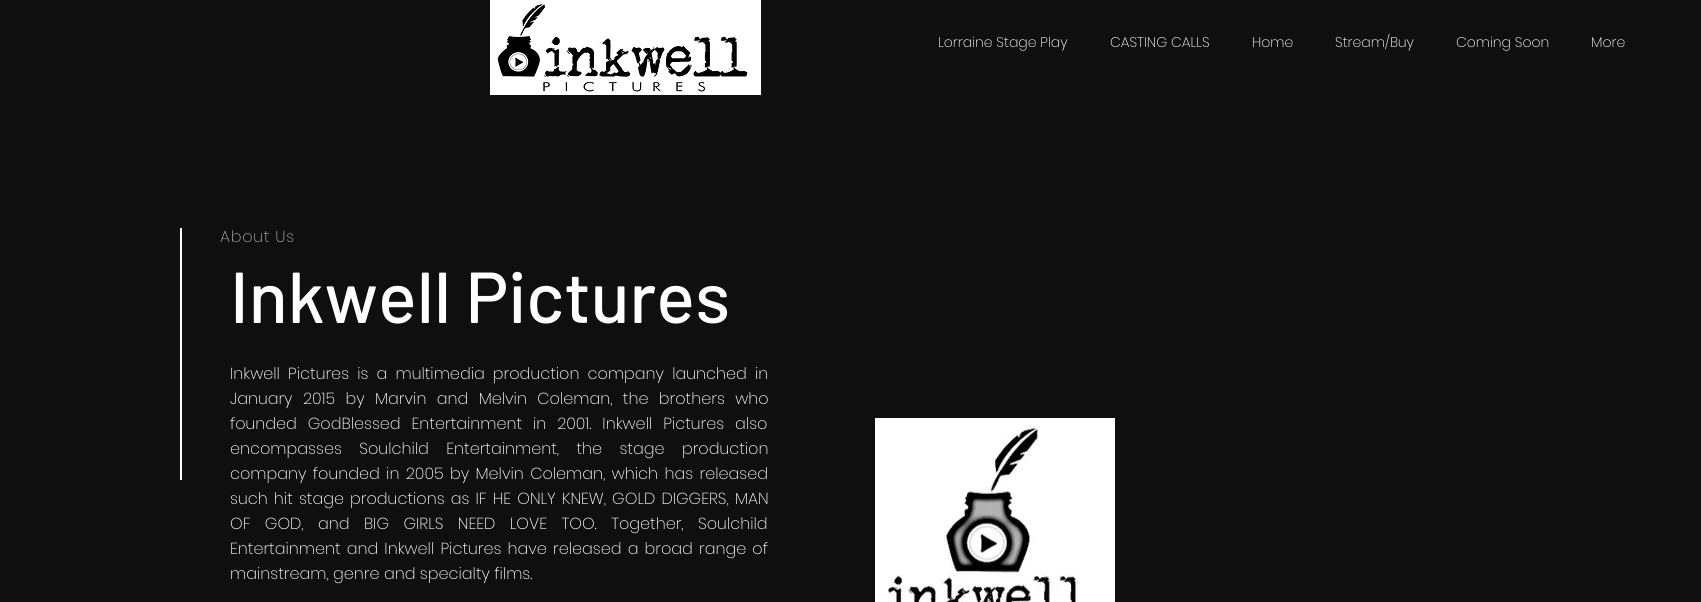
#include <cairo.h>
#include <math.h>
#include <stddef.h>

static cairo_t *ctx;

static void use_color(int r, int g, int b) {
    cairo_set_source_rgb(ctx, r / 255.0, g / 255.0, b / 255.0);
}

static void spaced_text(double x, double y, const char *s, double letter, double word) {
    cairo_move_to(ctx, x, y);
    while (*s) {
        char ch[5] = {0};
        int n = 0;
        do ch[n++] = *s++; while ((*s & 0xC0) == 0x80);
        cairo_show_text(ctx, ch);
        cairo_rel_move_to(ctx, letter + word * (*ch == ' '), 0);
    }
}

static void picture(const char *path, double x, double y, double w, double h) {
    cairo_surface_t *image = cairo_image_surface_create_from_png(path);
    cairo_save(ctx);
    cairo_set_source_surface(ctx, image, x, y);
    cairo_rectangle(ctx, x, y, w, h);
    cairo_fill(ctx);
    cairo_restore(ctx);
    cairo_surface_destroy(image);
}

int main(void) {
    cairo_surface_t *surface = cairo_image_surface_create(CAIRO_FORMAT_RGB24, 1701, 602);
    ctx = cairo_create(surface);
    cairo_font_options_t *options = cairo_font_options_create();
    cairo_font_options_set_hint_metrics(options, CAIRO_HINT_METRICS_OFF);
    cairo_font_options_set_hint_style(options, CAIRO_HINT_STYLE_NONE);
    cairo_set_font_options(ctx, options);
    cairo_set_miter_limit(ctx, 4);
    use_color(15, 15, 15);
    cairo_paint(ctx);
    picture("img1.png", 490, 0, 271, 95);
    cairo_select_font_face(ctx, "Poppins ExtraLight", CAIRO_FONT_SLANT_NORMAL, CAIRO_FONT_WEIGHT_NORMAL);
    cairo_set_font_size(ctx, 14);
    use_color(255, 255, 255);
    cairo_move_to(ctx, 938, 47);
    cairo_show_text(ctx, "Lorraine Stage Play");
    cairo_move_to(ctx, 1110, 47);
    cairo_show_text(ctx, "CASTING CALLS");
    cairo_move_to(ctx, 1252, 47);
    cairo_show_text(ctx, "Home");
    cairo_move_to(ctx, 1335, 47);
    cairo_show_text(ctx, "Stream/Buy");
    cairo_move_to(ctx, 1456, 47);
    cairo_show_text(ctx, "Coming Soon");
    cairo_move_to(ctx, 1591, 47);
    cairo_show_text(ctx, "More");
    cairo_rectangle(ctx, 180, 228, 2, 252);
    cairo_fill(ctx);
    cairo_set_font_size(ctx, 16);
    use_color(168, 168, 168);
    spaced_text(220, 242, "About Us", 0.75, 0);
    cairo_select_font_face(ctx, "Barlow Medium", CAIRO_FONT_SLANT_NORMAL, CAIRO_FONT_WEIGHT_NORMAL);
    cairo_set_font_size(ctx, 72);
    use_color(255, 255, 255);
    cairo_move_to(ctx, 230, 323);
    cairo_show_text(ctx, "Inkwell Pictures");
    cairo_select_font_face(ctx, "Poppins ExtraLight", CAIRO_FONT_SLANT_NORMAL, CAIRO_FONT_WEIGHT_NORMAL);
    cairo_set_font_size(ctx, 16);
    spaced_text(230, 379, "Inkwell Pictures is a multimedia production company launched in", 0, 3.75);
    spaced_text(230, 404, "January 2015 by Marvin and Melvin Coleman, the brothers who", 0, 6);
    spaced_text(230, 429, "founded GodBlessed Entertainment in 2001. Inkwell Pictures also", 0, 6.5);
    spaced_text(230, 454, "encompasses Soulchild Entertainment, the stage production", 0, 13);
    spaced_text(230, 479, "company founded in 2005 by Melvin Coleman, which has released", 0, 2);
    spaced_text(230, 504, "such hit stage productions as IF HE ONLY KNEW, GOLD DIGGERS, MAN", 0, 1.75);
    spaced_text(230, 529, "OF GOD, and BIG GIRLS NEED LOVE TOO. Together, Soulchild", 0, 10);
    spaced_text(230, 554, "Entertainment and Inkwell Pictures have released a broad range of", 0, 1.75);
    cairo_move_to(ctx, 230, 579);
    cairo_show_text(ctx, "mainstream, genre and specialty films.");
    picture("img2.png", 875, 418, 240, 184);
    cairo_surface_write_to_png(surface, "result.png");
    cairo_font_options_destroy(options);
    cairo_destroy(ctx);
    cairo_surface_destroy(surface);
    return 0;
}
